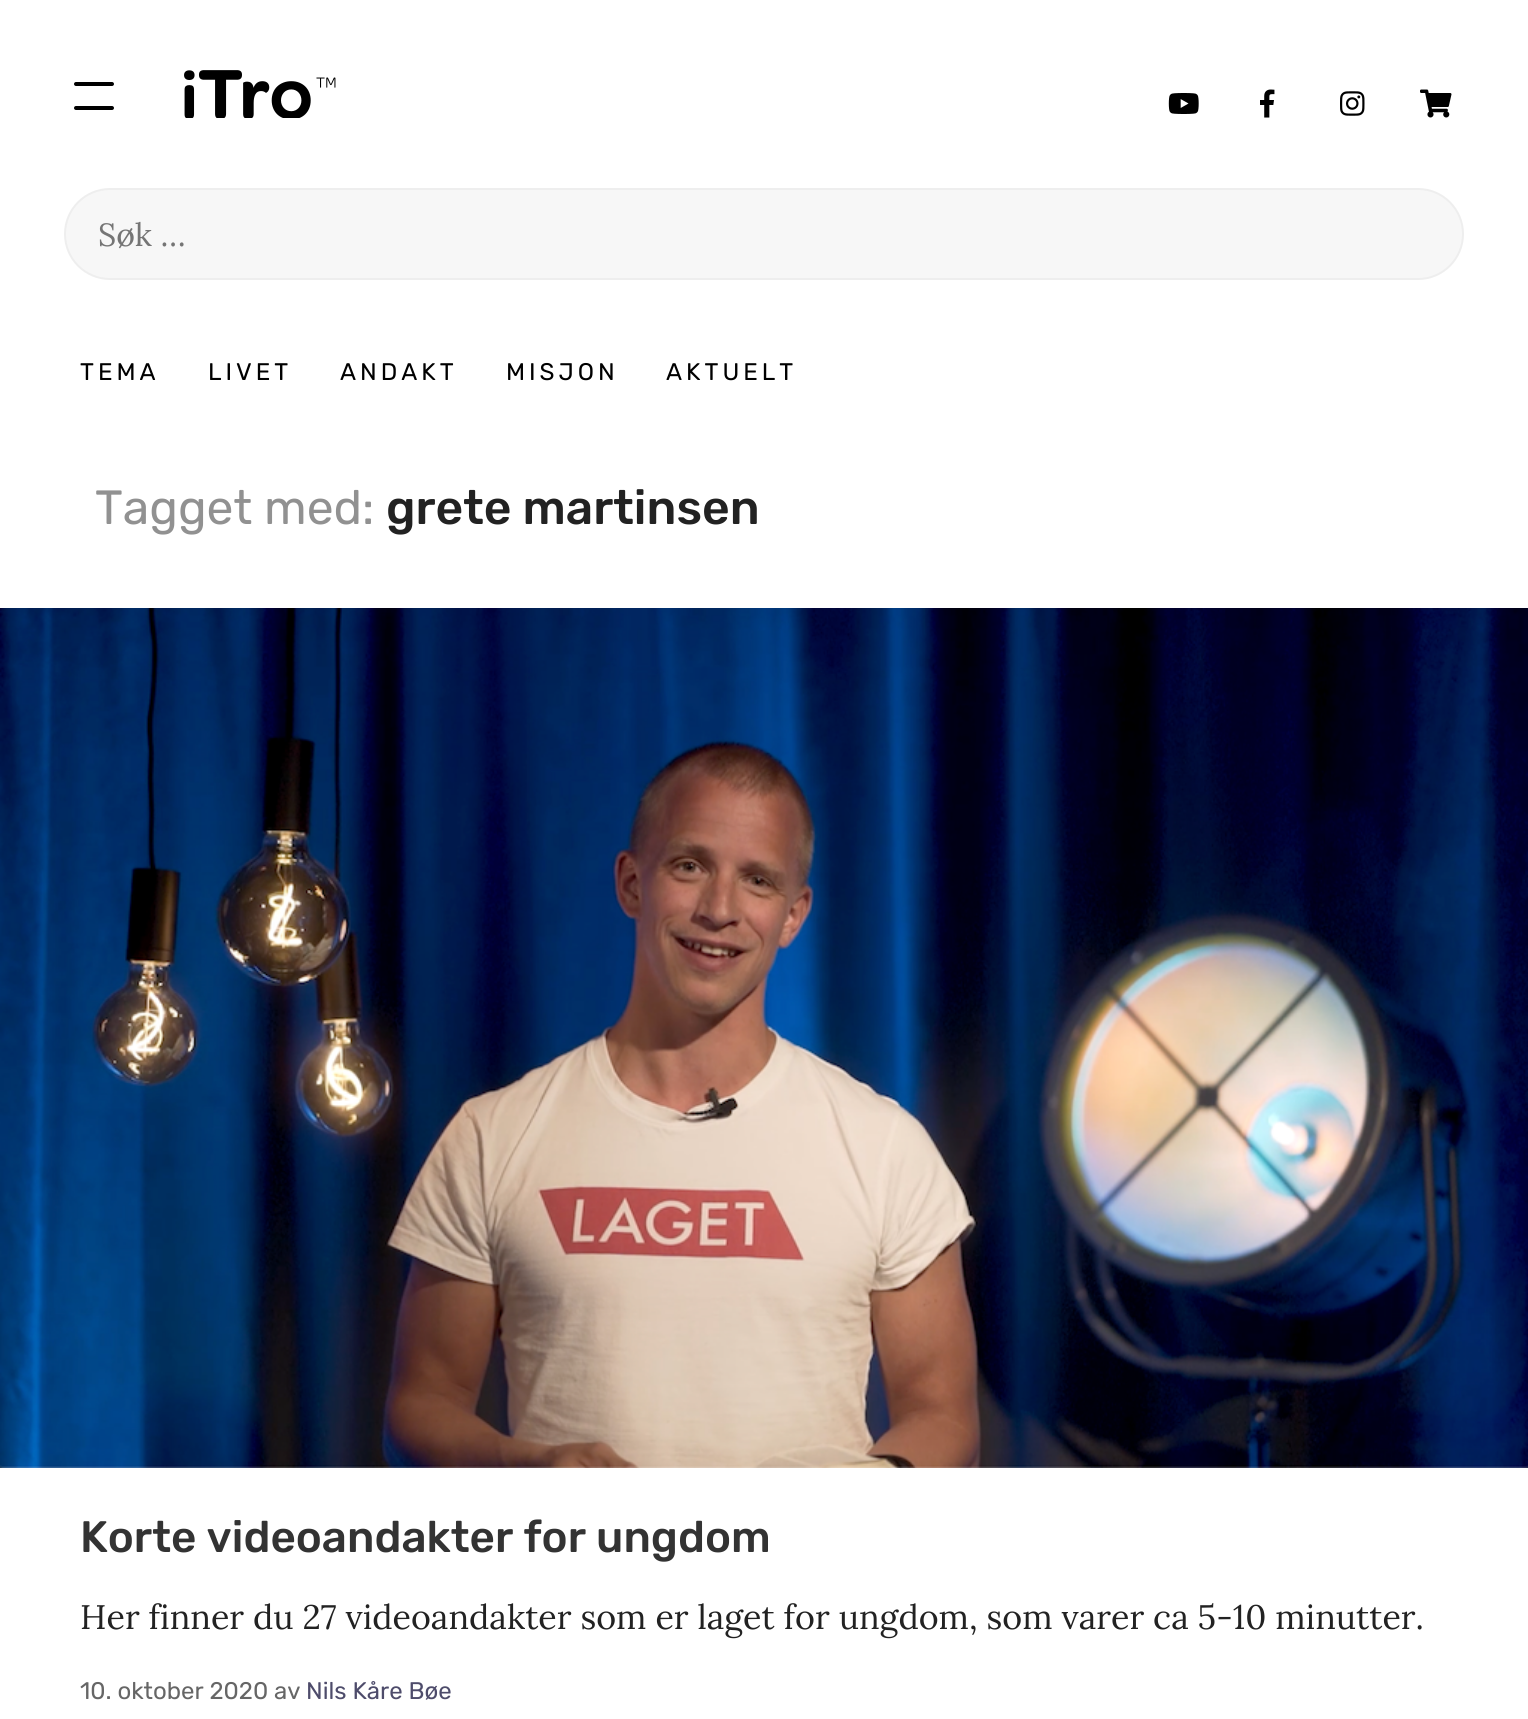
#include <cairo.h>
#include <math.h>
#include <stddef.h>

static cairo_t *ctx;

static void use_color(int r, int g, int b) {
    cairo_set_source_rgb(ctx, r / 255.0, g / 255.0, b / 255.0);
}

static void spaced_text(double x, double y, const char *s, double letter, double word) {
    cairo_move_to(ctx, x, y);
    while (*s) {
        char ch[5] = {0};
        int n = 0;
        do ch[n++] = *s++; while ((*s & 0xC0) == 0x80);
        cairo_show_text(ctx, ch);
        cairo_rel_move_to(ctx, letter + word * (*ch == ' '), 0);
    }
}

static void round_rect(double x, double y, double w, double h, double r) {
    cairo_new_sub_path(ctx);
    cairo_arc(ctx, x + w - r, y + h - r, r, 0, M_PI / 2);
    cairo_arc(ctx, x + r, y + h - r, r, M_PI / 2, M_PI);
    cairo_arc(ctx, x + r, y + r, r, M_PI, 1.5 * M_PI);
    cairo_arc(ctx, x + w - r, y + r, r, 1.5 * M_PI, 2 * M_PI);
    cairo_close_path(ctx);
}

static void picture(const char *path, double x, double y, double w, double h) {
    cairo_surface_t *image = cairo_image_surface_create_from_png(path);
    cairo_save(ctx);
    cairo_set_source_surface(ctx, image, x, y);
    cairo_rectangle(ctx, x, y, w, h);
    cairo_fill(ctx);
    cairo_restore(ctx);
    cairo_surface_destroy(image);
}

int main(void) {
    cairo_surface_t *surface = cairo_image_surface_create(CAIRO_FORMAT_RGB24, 1528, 1719);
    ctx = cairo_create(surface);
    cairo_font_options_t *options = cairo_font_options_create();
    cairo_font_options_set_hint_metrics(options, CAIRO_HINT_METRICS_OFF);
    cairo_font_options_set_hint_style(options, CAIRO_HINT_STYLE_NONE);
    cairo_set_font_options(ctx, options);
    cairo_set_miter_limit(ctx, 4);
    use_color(255, 255, 255);
    cairo_paint(ctx);
    picture("img1.png", 1168, 93, 31, 21);
    picture("img2.png", 1260, 89, 15, 29);
    picture("img3.png", 1340, 91, 25, 25);
    picture("img4.png", 1420, 89, 32, 29);
    picture("img5.png", 184, 70, 152, 48);
    use_color(0, 0, 0);
    round_rect(74, 82, 40, 4, 2);
    cairo_fill(ctx);
    round_rect(74, 106, 40, 4, 2);
    cairo_fill(ctx);
    use_color(247, 247, 247);
    round_rect(65, 189, 1398, 90, 45);
    cairo_fill_preserve(ctx);
    use_color(238, 238, 238);
    cairo_stroke(ctx);
    cairo_select_font_face(ctx, "Lora", CAIRO_FONT_SLANT_NORMAL, CAIRO_FONT_WEIGHT_NORMAL);
    cairo_set_font_size(ctx, 32);
    use_color(117, 117, 117);
    cairo_move_to(ctx, 98, 246);
    cairo_show_text(ctx, "Søk …");
    cairo_select_font_face(ctx, "Rubik", CAIRO_FONT_SLANT_NORMAL, CAIRO_FONT_WEIGHT_NORMAL);
    cairo_set_font_size(ctx, 24);
    use_color(0, 0, 0);
    spaced_text(80, 380, "TEMA", 4, 0);
    spaced_text(208, 380, "LIVET", 4, 0);
    spaced_text(340, 380, "ANDAKT", 4, 0);
    spaced_text(506, 380, "MISJON", 4, 0);
    spaced_text(666, 380, "AKTUELT", 4, 0);
    cairo_set_font_size(ctx, 48);
    use_color(145, 145, 145);
    cairo_move_to(ctx, 95, 524);
    cairo_show_text(ctx, "Tagget med:");
    cairo_select_font_face(ctx, "Rubik Medium", CAIRO_FONT_SLANT_NORMAL, CAIRO_FONT_WEIGHT_NORMAL);
    use_color(34, 34, 34);
    cairo_move_to(ctx, 386, 524);
    cairo_show_text(ctx, "grete martinsen");
    picture("img6.png", 0, 608, 1528, 860);
    cairo_set_font_size(ctx, 44);
    use_color(51, 51, 51);
    cairo_move_to(ctx, 80, 1552);
    cairo_show_text(ctx, "Korte videoandakter for ungdom");
    cairo_select_font_face(ctx, "Lora", CAIRO_FONT_SLANT_NORMAL, CAIRO_FONT_WEIGHT_NORMAL);
    cairo_set_font_size(ctx, 34);
    use_color(34, 34, 34);
    cairo_move_to(ctx, 80, 1629);
    cairo_show_text(ctx, "Her finner du 27 videoandakter som er laget for ungdom, som varer ca 5-10 minutter.");
    cairo_select_font_face(ctx, "Rubik", CAIRO_FONT_SLANT_NORMAL, CAIRO_FONT_WEIGHT_NORMAL);
    cairo_set_font_size(ctx, 24);
    use_color(102, 102, 102);
    cairo_move_to(ctx, 80, 1699);
    cairo_show_text(ctx, "10. oktober 2020 av");
    use_color(78, 76, 107);
    cairo_move_to(ctx, 306, 1699);
    cairo_show_text(ctx, "Nils Kåre Bøe");
    cairo_surface_write_to_png(surface, "result.png");
    cairo_font_options_destroy(options);
    cairo_destroy(ctx);
    cairo_surface_destroy(surface);
    return 0;
}
